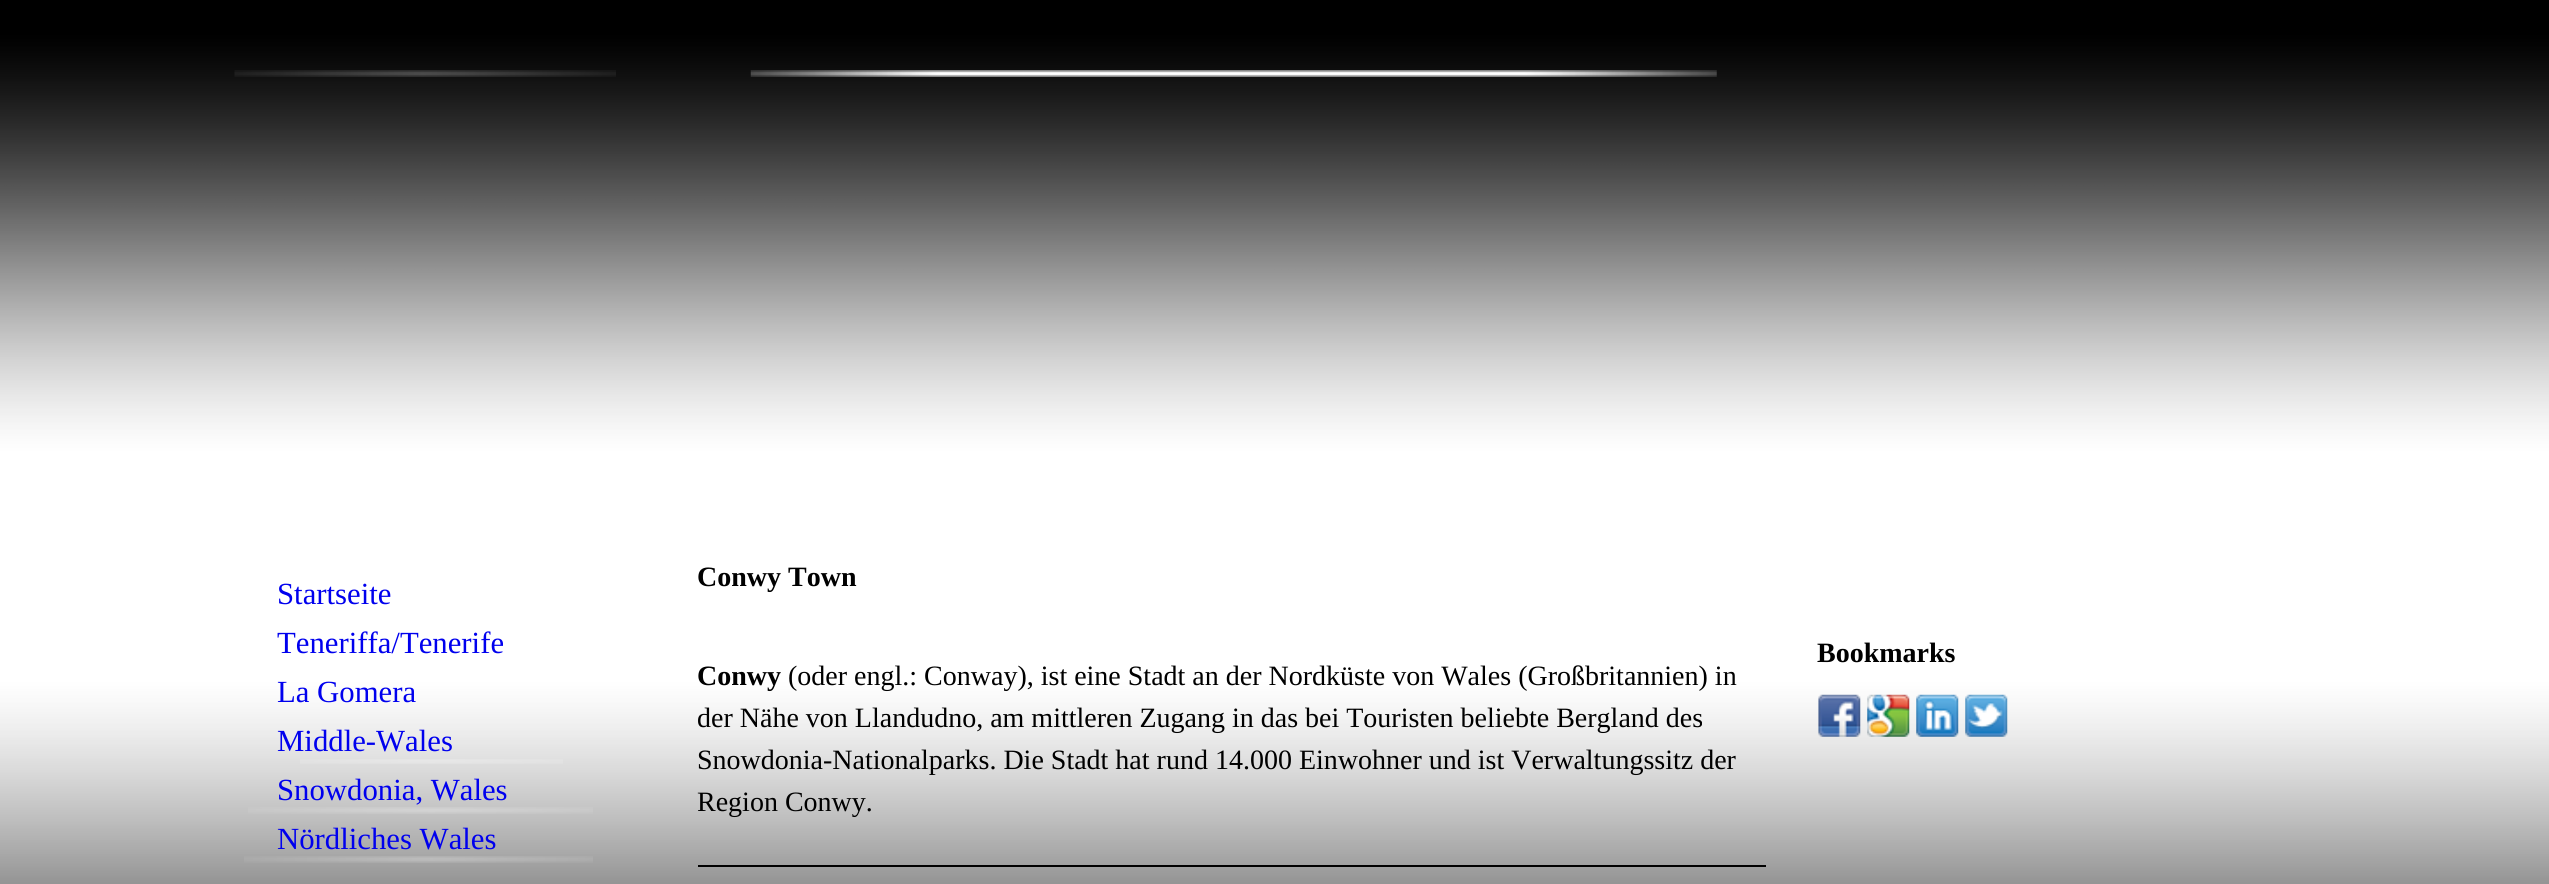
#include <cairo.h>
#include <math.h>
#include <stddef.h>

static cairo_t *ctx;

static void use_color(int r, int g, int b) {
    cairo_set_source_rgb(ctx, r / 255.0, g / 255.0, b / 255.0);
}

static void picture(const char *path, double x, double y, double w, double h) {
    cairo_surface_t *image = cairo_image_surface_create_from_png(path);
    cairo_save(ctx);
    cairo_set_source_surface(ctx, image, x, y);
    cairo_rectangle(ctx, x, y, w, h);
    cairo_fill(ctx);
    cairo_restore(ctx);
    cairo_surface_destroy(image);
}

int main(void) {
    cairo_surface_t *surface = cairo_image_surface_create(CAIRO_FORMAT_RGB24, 2549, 884);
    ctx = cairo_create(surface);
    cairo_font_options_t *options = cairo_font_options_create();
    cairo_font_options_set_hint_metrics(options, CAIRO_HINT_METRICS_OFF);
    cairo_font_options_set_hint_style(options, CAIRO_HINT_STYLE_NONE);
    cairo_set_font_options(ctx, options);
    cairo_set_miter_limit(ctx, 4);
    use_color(255, 255, 255);
    cairo_paint(ctx);
    picture("img1.png", 0, 0, 2549, 884);
    picture("img2.png", 234, 70, 382, 7);
    picture("img3.png", 750, 70, 967, 7);
    cairo_select_font_face(ctx, "Liberation Serif", CAIRO_FONT_SLANT_NORMAL, CAIRO_FONT_WEIGHT_NORMAL);
    cairo_set_font_size(ctx, 30.75);
    use_color(0, 0, 238);
    cairo_move_to(ctx, 277, 604);
    cairo_show_text(ctx, "Startseite");
    cairo_move_to(ctx, 277, 653);
    cairo_show_text(ctx, "Teneriffa/Tenerife");
    cairo_move_to(ctx, 277, 702);
    cairo_show_text(ctx, "La Gomera");
    picture("img4.png", 300, 759, 263, 5);
    cairo_move_to(ctx, 277, 751);
    cairo_show_text(ctx, "Middle-Wales");
    picture("img5.png", 248, 807, 345, 7);
    cairo_move_to(ctx, 277, 800);
    cairo_show_text(ctx, "Snowdonia, Wales");
    picture("img6.png", 244, 856, 349, 7);
    cairo_move_to(ctx, 277, 849);
    cairo_show_text(ctx, "Nördliches Wales");
    cairo_select_font_face(ctx, "Liberation Serif", CAIRO_FONT_SLANT_NORMAL, CAIRO_FONT_WEIGHT_BOLD);
    cairo_set_font_size(ctx, 28);
    use_color(0, 0, 0);
    cairo_move_to(ctx, 697, 586);
    cairo_show_text(ctx, "Conwy Town");
    cairo_move_to(ctx, 697, 685);
    cairo_show_text(ctx, "Conwy");
    cairo_select_font_face(ctx, "Liberation Serif", CAIRO_FONT_SLANT_NORMAL, CAIRO_FONT_WEIGHT_NORMAL);
    cairo_move_to(ctx, 788, 685);
    cairo_show_text(ctx, "(oder engl.: Conway), ist eine Stadt an der Nordküste von Wales (Großbritannien) in");
    cairo_move_to(ctx, 697, 727);
    cairo_show_text(ctx, "der Nähe von Llandudno, am mittleren Zugang in das bei Touristen beliebte Bergland des");
    cairo_move_to(ctx, 697, 769);
    cairo_show_text(ctx, "Snowdonia-Nationalparks. Die Stadt hat rund 14.000 Einwohner und ist Verwaltungssitz der");
    cairo_move_to(ctx, 697, 811);
    cairo_show_text(ctx, "Region Conwy.");
    cairo_rectangle(ctx, 698, 865, 1068, 2);
    cairo_fill(ctx);
    cairo_select_font_face(ctx, "Liberation Serif", CAIRO_FONT_SLANT_NORMAL, CAIRO_FONT_WEIGHT_BOLD);
    cairo_move_to(ctx, 1817, 662);
    cairo_show_text(ctx, "Bookmarks");
    picture("img7.png", 1818, 694, 43, 43);
    picture("img8.png", 1867, 694, 43, 43);
    picture("img9.png", 1916, 694, 43, 43);
    picture("img10.png", 1965, 694, 43, 43);
    cairo_surface_write_to_png(surface, "result.png");
    cairo_font_options_destroy(options);
    cairo_destroy(ctx);
    cairo_surface_destroy(surface);
    return 0;
}
